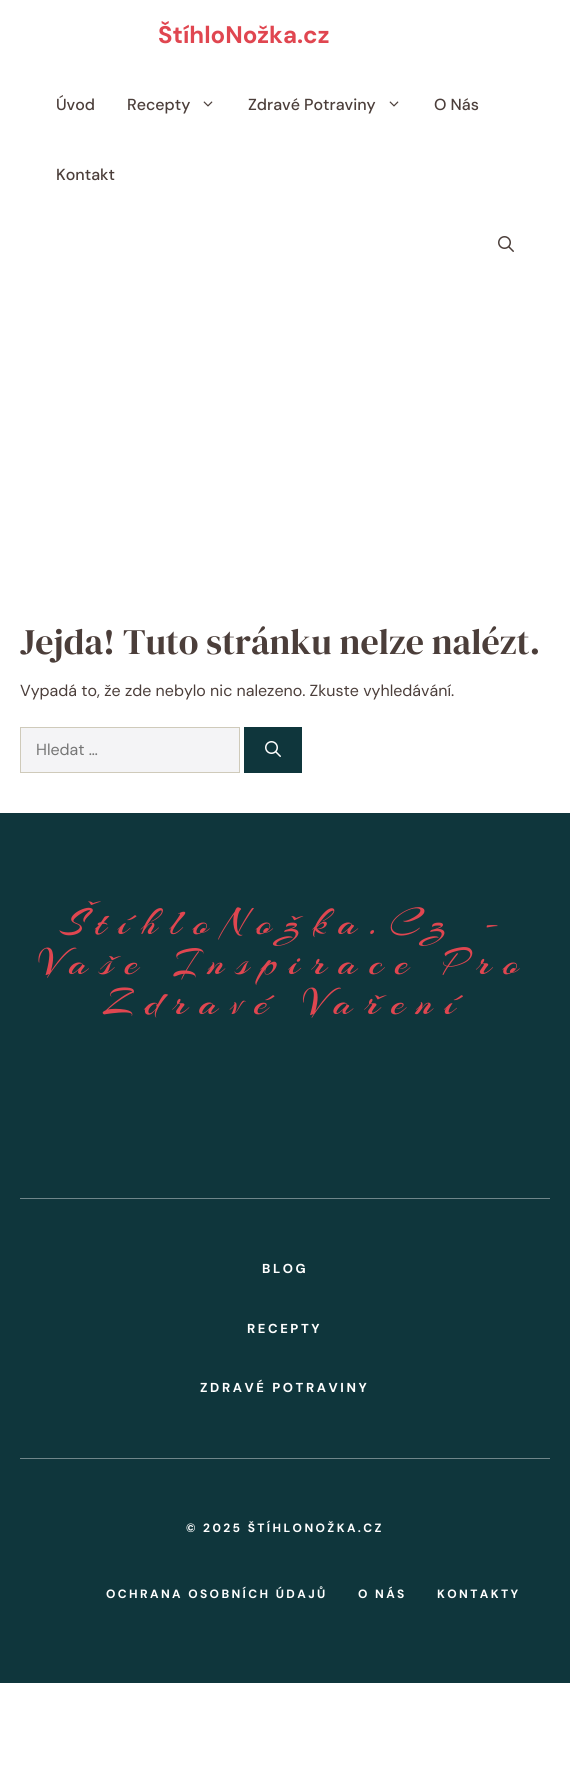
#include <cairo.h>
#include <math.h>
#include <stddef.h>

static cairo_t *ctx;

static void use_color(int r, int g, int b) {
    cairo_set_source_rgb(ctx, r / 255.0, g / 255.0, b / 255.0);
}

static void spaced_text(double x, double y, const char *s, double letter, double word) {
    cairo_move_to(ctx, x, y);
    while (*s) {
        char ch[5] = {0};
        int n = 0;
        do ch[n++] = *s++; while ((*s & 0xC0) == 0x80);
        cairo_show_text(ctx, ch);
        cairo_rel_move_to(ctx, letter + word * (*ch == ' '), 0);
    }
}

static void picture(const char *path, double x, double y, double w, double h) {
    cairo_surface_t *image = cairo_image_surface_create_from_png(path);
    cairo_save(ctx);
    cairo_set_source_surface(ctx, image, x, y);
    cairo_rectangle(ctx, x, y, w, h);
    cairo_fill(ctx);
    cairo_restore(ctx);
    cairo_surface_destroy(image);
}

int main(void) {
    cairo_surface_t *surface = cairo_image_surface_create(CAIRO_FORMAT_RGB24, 570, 1778);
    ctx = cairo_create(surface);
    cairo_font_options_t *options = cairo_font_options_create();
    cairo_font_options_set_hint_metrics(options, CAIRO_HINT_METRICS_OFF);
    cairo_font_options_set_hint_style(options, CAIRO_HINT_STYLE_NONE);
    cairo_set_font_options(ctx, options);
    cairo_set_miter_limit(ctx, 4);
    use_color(255, 255, 255);
    cairo_paint(ctx);
    cairo_select_font_face(ctx, "DM Sans", CAIRO_FONT_SLANT_NORMAL, CAIRO_FONT_WEIGHT_BOLD);
    cairo_set_font_size(ctx, 24);
    use_color(224, 70, 80);
    cairo_move_to(ctx, 158, 43);
    cairo_show_text(ctx, "ŠtíhloNožka.cz");
    cairo_select_font_face(ctx, "DM Sans Medium", CAIRO_FONT_SLANT_NORMAL, CAIRO_FONT_WEIGHT_NORMAL);
    cairo_set_font_size(ctx, 16);
    use_color(75, 62, 58);
    cairo_move_to(ctx, 56, 110);
    cairo_show_text(ctx, "Úvod");
    cairo_move_to(ctx, 127, 110);
    cairo_show_text(ctx, "Recepty");
    picture("img1.png", 203, 101, 10, 6);
    cairo_move_to(ctx, 248, 110);
    cairo_show_text(ctx, "Zdravé Potraviny");
    picture("img1.png", 389, 101, 10, 6);
    cairo_move_to(ctx, 434, 110);
    cairo_show_text(ctx, "O Nás");
    cairo_move_to(ctx, 56, 180);
    cairo_show_text(ctx, "Kontakt");
    picture("img2.png", 498, 236, 16, 16);
    cairo_select_font_face(ctx, "DM Serif Display", CAIRO_FONT_SLANT_NORMAL, CAIRO_FONT_WEIGHT_NORMAL);
    cairo_set_font_size(ctx, 36);
    cairo_move_to(ctx, 20, 654);
    cairo_show_text(ctx, "Jejda! Tuto stránku nelze nalézt.");
    cairo_select_font_face(ctx, "DM Sans", CAIRO_FONT_SLANT_NORMAL, CAIRO_FONT_WEIGHT_NORMAL);
    cairo_set_font_size(ctx, 16);
    cairo_move_to(ctx, 20, 696);
    cairo_show_text(ctx, "Vypadá to, že zde nebylo nic nalezeno. Zkuste vyhledávání.");
    use_color(244, 244, 246);
    cairo_rectangle(ctx, 20.5, 727.5, 219, 45);
    cairo_fill_preserve(ctx);
    use_color(207, 202, 186);
    cairo_set_line_width(ctx, 1);
    cairo_stroke(ctx);
    use_color(117, 117, 117);
    cairo_move_to(ctx, 36, 755);
    cairo_show_text(ctx, "Hledat …");
    use_color(15, 54, 60);
    cairo_rectangle(ctx, 244, 727, 58, 46);
    cairo_fill(ctx);
    picture("img3.png", 265, 741, 16, 16);
    cairo_rectangle(ctx, 0, 813, 570, 870);
    cairo_fill(ctx);
    cairo_select_font_face(ctx, "Arizonia", CAIRO_FONT_SLANT_NORMAL, CAIRO_FONT_WEIGHT_NORMAL);
    cairo_set_font_size(ctx, 40);
    use_color(224, 70, 80);
    spaced_text(60, 934, "ŠtíhloNožka.Cz -", 12, 0);
    spaced_text(38, 974, "Vaše Inspirace Pro", 12, 0);
    spaced_text(103, 1014, "Zdravé Vaření", 12, 0);
    use_color(111, 134, 138);
    cairo_rectangle(ctx, 20, 1198, 530, 1);
    cairo_fill(ctx);
    cairo_rectangle(ctx, 20, 1458, 530, 1);
    cairo_fill(ctx);
    cairo_select_font_face(ctx, "DM Sans", CAIRO_FONT_SLANT_NORMAL, CAIRO_FONT_WEIGHT_BOLD);
    cairo_set_font_size(ctx, 13);
    use_color(255, 255, 255);
    spaced_text(262, 1273, "BLOG", 2.6, 0);
    spaced_text(247, 1333, "RECEPTY", 2.6, 0);
    spaced_text(200, 1392, "ZDRAVÉ POTRAVINY", 2.6, 0);
    cairo_set_font_size(ctx, 12);
    spaced_text(186, 1532, "© 2025 ŠTÍHLONOŽKA.CZ", 2.4, 0);
    spaced_text(106, 1598, "OCHRANA OSOBNÍCH ÚDAJŮ", 2.4, 0);
    spaced_text(358, 1598, "O NÁS", 2.4, 0);
    spaced_text(437, 1598, "KONTAKTY", 2.4, 0);
    cairo_surface_write_to_png(surface, "result.png");
    cairo_font_options_destroy(options);
    cairo_destroy(ctx);
    cairo_surface_destroy(surface);
    return 0;
}
